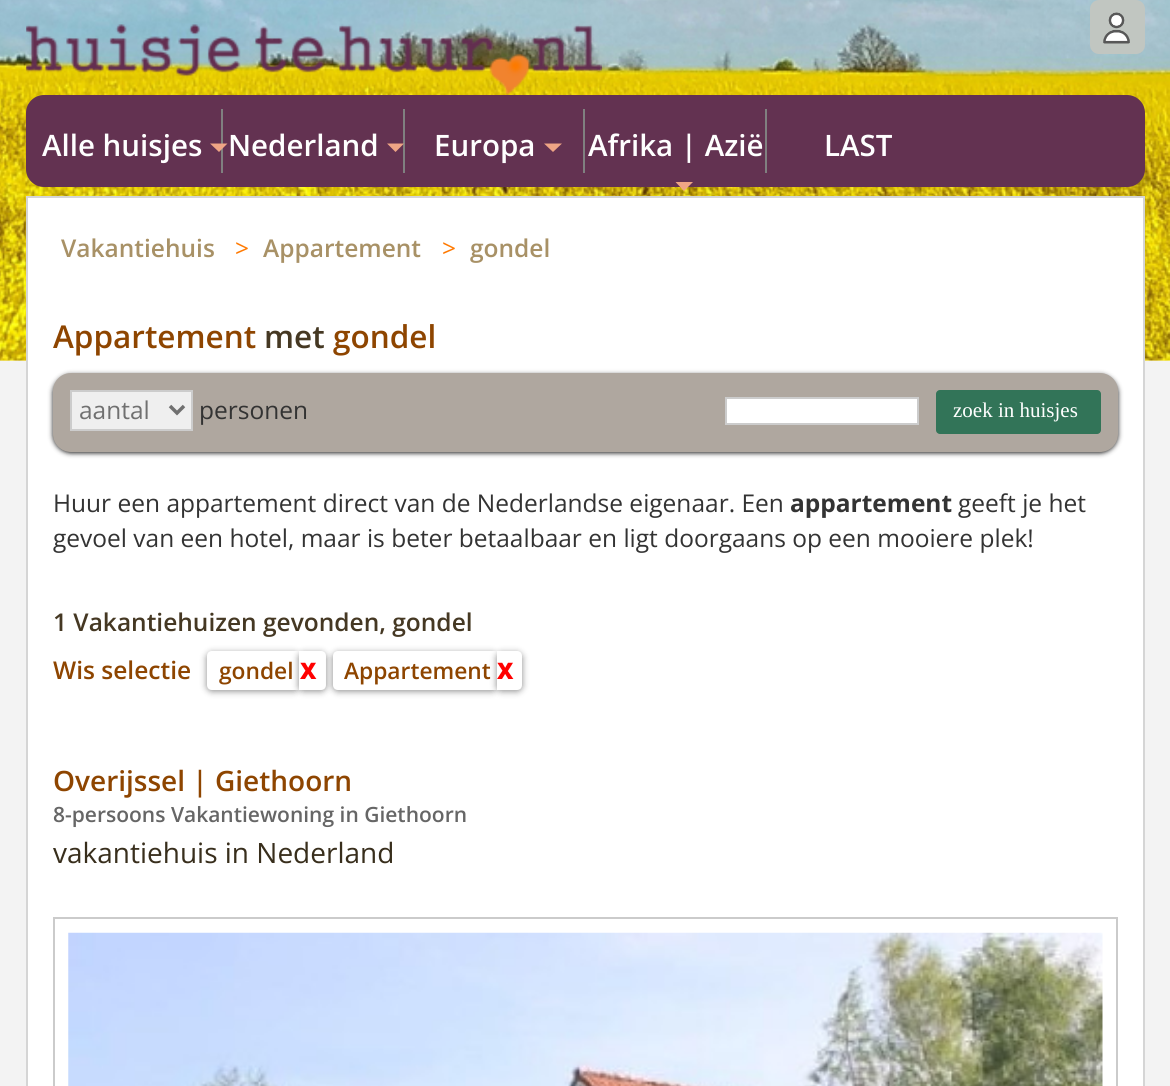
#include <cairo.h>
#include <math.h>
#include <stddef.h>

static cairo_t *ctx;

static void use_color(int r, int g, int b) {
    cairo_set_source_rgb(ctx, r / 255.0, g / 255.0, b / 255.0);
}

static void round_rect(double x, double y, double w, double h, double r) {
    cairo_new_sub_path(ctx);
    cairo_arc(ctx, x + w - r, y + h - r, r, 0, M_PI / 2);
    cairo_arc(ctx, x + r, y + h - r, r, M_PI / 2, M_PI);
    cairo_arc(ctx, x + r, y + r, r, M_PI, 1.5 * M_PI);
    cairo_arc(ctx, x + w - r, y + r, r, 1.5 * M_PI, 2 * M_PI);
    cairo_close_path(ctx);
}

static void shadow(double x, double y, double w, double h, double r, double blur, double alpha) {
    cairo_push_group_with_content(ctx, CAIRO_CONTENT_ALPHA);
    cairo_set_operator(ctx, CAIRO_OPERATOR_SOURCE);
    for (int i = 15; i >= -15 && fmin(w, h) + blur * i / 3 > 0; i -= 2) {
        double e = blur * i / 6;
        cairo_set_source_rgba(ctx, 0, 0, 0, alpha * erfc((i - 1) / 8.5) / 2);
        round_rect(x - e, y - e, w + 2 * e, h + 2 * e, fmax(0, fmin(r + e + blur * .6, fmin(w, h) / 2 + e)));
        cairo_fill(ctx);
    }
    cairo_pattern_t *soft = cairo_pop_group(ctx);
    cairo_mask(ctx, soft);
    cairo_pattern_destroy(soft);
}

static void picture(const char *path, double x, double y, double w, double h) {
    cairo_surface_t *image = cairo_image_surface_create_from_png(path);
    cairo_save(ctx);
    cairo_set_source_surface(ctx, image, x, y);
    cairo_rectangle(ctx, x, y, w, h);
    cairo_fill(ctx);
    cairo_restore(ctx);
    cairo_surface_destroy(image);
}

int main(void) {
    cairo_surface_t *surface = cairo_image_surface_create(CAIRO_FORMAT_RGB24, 1170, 1086);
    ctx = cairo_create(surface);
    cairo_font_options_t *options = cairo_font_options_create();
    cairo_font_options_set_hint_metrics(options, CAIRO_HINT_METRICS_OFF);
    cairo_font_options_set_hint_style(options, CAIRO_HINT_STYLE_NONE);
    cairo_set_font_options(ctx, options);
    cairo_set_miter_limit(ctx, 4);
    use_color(247, 234, 170);
    cairo_paint(ctx);
    picture("img2.png", 0, 0, 1170, 361);
    use_color(193, 198, 193);
    round_rect(1090, 0, 55, 54, 9);
    cairo_fill(ctx);
    picture("img1.png", 1103, 12, 27, 32);
    picture("img3.png", 26, 24, 576, 71);
    use_color(99, 50, 81);
    round_rect(26, 95, 1119, 92, 18);
    cairo_fill(ctx);
    use_color(128, 128, 128);
    cairo_rectangle(ctx, 221, 109, 2, 64);
    cairo_fill(ctx);
    cairo_select_font_face(ctx, "Open Sans SemiBold", CAIRO_FONT_SLANT_NORMAL, CAIRO_FONT_WEIGHT_NORMAL);
    cairo_set_font_size(ctx, 29.5);
    use_color(255, 255, 255);
    cairo_move_to(ctx, 42, 156);
    cairo_show_text(ctx, "Alle huisjes");
    use_color(239, 165, 133);
    cairo_new_path(ctx);
    cairo_move_to(ctx, 210, 143.5);
    cairo_line_to(ctx, 227.5, 143.5);
    cairo_line_to(ctx, 219, 152);
    cairo_close_path(ctx);
    cairo_fill(ctx);
    use_color(128, 128, 128);
    cairo_rectangle(ctx, 403, 109, 2, 64);
    cairo_fill(ctx);
    use_color(255, 255, 255);
    cairo_move_to(ctx, 228, 156);
    cairo_show_text(ctx, "Nederland");
    use_color(239, 165, 133);
    cairo_new_path(ctx);
    cairo_move_to(ctx, 387, 143.5);
    cairo_line_to(ctx, 404, 143.5);
    cairo_line_to(ctx, 395.5, 152);
    cairo_close_path(ctx);
    cairo_fill(ctx);
    use_color(128, 128, 128);
    cairo_rectangle(ctx, 583, 109, 2, 64);
    cairo_fill(ctx);
    use_color(255, 255, 255);
    cairo_move_to(ctx, 434, 156);
    cairo_show_text(ctx, "Europa");
    use_color(239, 165, 133);
    cairo_new_path(ctx);
    cairo_move_to(ctx, 544, 143.5);
    cairo_line_to(ctx, 562, 143.5);
    cairo_line_to(ctx, 553, 152);
    cairo_close_path(ctx);
    cairo_fill(ctx);
    use_color(128, 128, 128);
    cairo_rectangle(ctx, 765, 109, 2, 64);
    cairo_fill(ctx);
    use_color(255, 255, 255);
    cairo_move_to(ctx, 588, 156);
    cairo_show_text(ctx, "Afrika | Azië");
    use_color(239, 165, 133);
    cairo_new_path(ctx);
    cairo_move_to(ctx, 675.5, 182);
    cairo_line_to(ctx, 693, 182);
    cairo_line_to(ctx, 684, 191);
    cairo_close_path(ctx);
    cairo_fill(ctx);
    use_color(255, 255, 255);
    cairo_move_to(ctx, 824, 156);
    cairo_show_text(ctx, "LAST");
    use_color(243, 243, 243);
    cairo_rectangle(ctx, 0, 361, 1170, 725);
    cairo_fill(ctx);
    use_color(255, 255, 255);
    cairo_rectangle(ctx, 27, 197, 1117, 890);
    cairo_fill_preserve(ctx);
    use_color(213, 213, 213);
    cairo_stroke(ctx);
    cairo_set_font_size(ctx, 24.5);
    use_color(168, 145, 102);
    cairo_move_to(ctx, 61, 257);
    cairo_show_text(ctx, "Vakantiehuis");
    cairo_select_font_face(ctx, "Open Sans", CAIRO_FONT_SLANT_NORMAL, CAIRO_FONT_WEIGHT_NORMAL);
    use_color(255, 121, 0);
    cairo_move_to(ctx, 235, 257);
    cairo_show_text(ctx, ">");
    cairo_select_font_face(ctx, "Open Sans SemiBold", CAIRO_FONT_SLANT_NORMAL, CAIRO_FONT_WEIGHT_NORMAL);
    use_color(168, 145, 102);
    cairo_move_to(ctx, 263, 257);
    cairo_show_text(ctx, "Appartement");
    cairo_select_font_face(ctx, "Open Sans", CAIRO_FONT_SLANT_NORMAL, CAIRO_FONT_WEIGHT_NORMAL);
    use_color(255, 121, 0);
    cairo_move_to(ctx, 442, 257);
    cairo_show_text(ctx, ">");
    cairo_select_font_face(ctx, "Open Sans SemiBold", CAIRO_FONT_SLANT_NORMAL, CAIRO_FONT_WEIGHT_NORMAL);
    use_color(168, 145, 102);
    cairo_move_to(ctx, 470, 257);
    cairo_show_text(ctx, "gondel");
    cairo_set_font_size(ctx, 31.5);
    use_color(142, 69, 0);
    cairo_move_to(ctx, 53, 348);
    cairo_show_text(ctx, "Appartement");
    use_color(69, 56, 35);
    cairo_move_to(ctx, 264, 348);
    cairo_show_text(ctx, "met");
    use_color(142, 69, 0);
    cairo_move_to(ctx, 333, 348);
    cairo_show_text(ctx, "gondel");
    use_color(0, 0, 0);
    shadow(53, 375, 1065, 78, 18, 2.5, 0.9);
    use_color(175, 167, 159);
    round_rect(53, 373, 1065, 79, 18);
    cairo_fill(ctx);
    use_color(239, 239, 239);
    cairo_rectangle(ctx, 71, 391, 121, 39);
    cairo_fill_preserve(ctx);
    use_color(204, 204, 204);
    cairo_stroke(ctx);
    cairo_new_path(ctx);
    cairo_move_to(ctx, 170, 406);
    cairo_line_to(ctx, 177, 413);
    cairo_line_to(ctx, 184, 406);
    use_color(112, 112, 112);
    cairo_set_line_width(ctx, 3.5);
    cairo_stroke(ctx);
    cairo_select_font_face(ctx, "Open Sans", CAIRO_FONT_SLANT_NORMAL, CAIRO_FONT_WEIGHT_NORMAL);
    cairo_set_font_size(ctx, 24.5);
    cairo_move_to(ctx, 79, 419);
    cairo_show_text(ctx, "aantal");
    use_color(51, 51, 51);
    cairo_move_to(ctx, 199, 419);
    cairo_show_text(ctx, "personen");
    use_color(255, 255, 255);
    cairo_rectangle(ctx, 726, 398, 192, 26);
    cairo_fill_preserve(ctx);
    use_color(204, 204, 204);
    cairo_set_line_width(ctx, 2);
    cairo_stroke(ctx);
    use_color(50, 116, 88);
    round_rect(936, 390, 165, 44, 4);
    cairo_fill(ctx);
    cairo_select_font_face(ctx, "Liberation Serif", CAIRO_FONT_SLANT_NORMAL, CAIRO_FONT_WEIGHT_NORMAL);
    cairo_set_font_size(ctx, 21);
    use_color(255, 255, 255);
    cairo_move_to(ctx, 953, 417);
    cairo_show_text(ctx, "zoek in huisjes");
    cairo_select_font_face(ctx, "Open Sans", CAIRO_FONT_SLANT_NORMAL, CAIRO_FONT_WEIGHT_NORMAL);
    cairo_set_font_size(ctx, 24.5);
    use_color(51, 51, 51);
    cairo_move_to(ctx, 53, 512);
    cairo_show_text(ctx, "Huur een appartement direct van de Nederlandse eigenaar. Een");
    cairo_select_font_face(ctx, "Open Sans", CAIRO_FONT_SLANT_NORMAL, CAIRO_FONT_WEIGHT_BOLD);
    cairo_move_to(ctx, 790, 512);
    cairo_show_text(ctx, "appartement");
    cairo_select_font_face(ctx, "Open Sans", CAIRO_FONT_SLANT_NORMAL, CAIRO_FONT_WEIGHT_NORMAL);
    cairo_move_to(ctx, 958, 512);
    cairo_show_text(ctx, "geeft je het");
    cairo_move_to(ctx, 53, 547);
    cairo_show_text(ctx, "gevoel van een hotel, maar is beter betaalbaar en ligt doorgaans op een mooiere plek!");
    cairo_select_font_face(ctx, "Open Sans SemiBold", CAIRO_FONT_SLANT_NORMAL, CAIRO_FONT_WEIGHT_NORMAL);
    use_color(69, 56, 35);
    cairo_move_to(ctx, 53, 631);
    cairo_show_text(ctx, "1 Vakantiehuizen gevonden, gondel");
    use_color(142, 69, 0);
    cairo_move_to(ctx, 53, 679);
    cairo_show_text(ctx, "Wis selectie");
    use_color(136, 136, 136);
    shadow(207, 653, 92, 38, 5, 3.5, 1);
    use_color(255, 255, 255);
    cairo_new_path(ctx);
    cairo_move_to(ctx, 212, 651);
    cairo_line_to(ctx, 299, 651);
    cairo_line_to(ctx, 299, 690);
    cairo_line_to(ctx, 212, 690);
    cairo_curve_to(ctx, 209, 690, 207, 688, 207, 685);
    cairo_line_to(ctx, 207, 656);
    cairo_curve_to(ctx, 207, 653, 209, 651, 212, 651);
    cairo_close_path(ctx);
    cairo_fill(ctx);
    use_color(136, 136, 136);
    shadow(299, 653, 27, 38, 5, 3.5, 1);
    cairo_set_font_size(ctx, 22.75);
    use_color(142, 69, 0);
    cairo_move_to(ctx, 219, 679);
    cairo_show_text(ctx, "gondel");
    use_color(255, 255, 255);
    cairo_new_path(ctx);
    cairo_move_to(ctx, 299, 651);
    cairo_line_to(ctx, 321, 651);
    cairo_curve_to(ctx, 324, 651, 326, 653, 326, 656);
    cairo_line_to(ctx, 326, 685);
    cairo_curve_to(ctx, 326, 688, 324, 690, 321, 690);
    cairo_line_to(ctx, 299, 690);
    cairo_close_path(ctx);
    cairo_fill(ctx);
    cairo_select_font_face(ctx, "Open Sans ExtraBold", CAIRO_FONT_SLANT_NORMAL, CAIRO_FONT_WEIGHT_NORMAL);
    use_color(255, 0, 0);
    cairo_move_to(ctx, 300, 679);
    cairo_show_text(ctx, "X");
    use_color(136, 136, 136);
    shadow(333, 653, 164, 38, 5, 3.5, 1);
    use_color(255, 255, 255);
    cairo_new_path(ctx);
    cairo_move_to(ctx, 338, 651);
    cairo_line_to(ctx, 497, 651);
    cairo_line_to(ctx, 497, 690);
    cairo_line_to(ctx, 338, 690);
    cairo_curve_to(ctx, 335, 690, 333, 688, 333, 685);
    cairo_line_to(ctx, 333, 656);
    cairo_curve_to(ctx, 333, 653, 335, 651, 338, 651);
    cairo_close_path(ctx);
    cairo_fill(ctx);
    use_color(136, 136, 136);
    shadow(497, 653, 25, 38, 5, 3.5, 1);
    cairo_select_font_face(ctx, "Open Sans SemiBold", CAIRO_FONT_SLANT_NORMAL, CAIRO_FONT_WEIGHT_NORMAL);
    use_color(142, 69, 0);
    cairo_move_to(ctx, 344, 679);
    cairo_show_text(ctx, "Appartement");
    use_color(255, 255, 255);
    cairo_new_path(ctx);
    cairo_move_to(ctx, 497, 651);
    cairo_line_to(ctx, 517, 651);
    cairo_curve_to(ctx, 520, 651, 522, 653, 522, 656);
    cairo_line_to(ctx, 522, 685);
    cairo_curve_to(ctx, 522, 688, 520, 690, 517, 690);
    cairo_line_to(ctx, 497, 690);
    cairo_close_path(ctx);
    cairo_fill(ctx);
    cairo_select_font_face(ctx, "Open Sans ExtraBold", CAIRO_FONT_SLANT_NORMAL, CAIRO_FONT_WEIGHT_NORMAL);
    use_color(255, 0, 0);
    cairo_move_to(ctx, 497, 679);
    cairo_show_text(ctx, "X");
    cairo_select_font_face(ctx, "Open Sans SemiBold", CAIRO_FONT_SLANT_NORMAL, CAIRO_FONT_WEIGHT_NORMAL);
    cairo_set_font_size(ctx, 28);
    use_color(142, 69, 0);
    cairo_move_to(ctx, 53, 791);
    cairo_show_text(ctx, "Overijssel | Giethoorn");
    cairo_set_font_size(ctx, 21);
    use_color(102, 102, 102);
    cairo_move_to(ctx, 53, 822);
    cairo_show_text(ctx, "8-persoons Vakantiewoning in Giethoorn");
    cairo_select_font_face(ctx, "Open Sans", CAIRO_FONT_SLANT_NORMAL, CAIRO_FONT_WEIGHT_NORMAL);
    cairo_set_font_size(ctx, 28);
    use_color(56, 46, 28);
    cairo_move_to(ctx, 53, 863);
    cairo_show_text(ctx, "vakantiehuis in Nederland");
    cairo_rectangle(ctx, 54, 918, 1063, 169);
    use_color(203, 203, 203);
    cairo_stroke(ctx);
    picture("img4.png", 68, 932, 1035, 154);
    cairo_surface_write_to_png(surface, "result.png");
    cairo_font_options_destroy(options);
    cairo_destroy(ctx);
    cairo_surface_destroy(surface);
    return 0;
}
